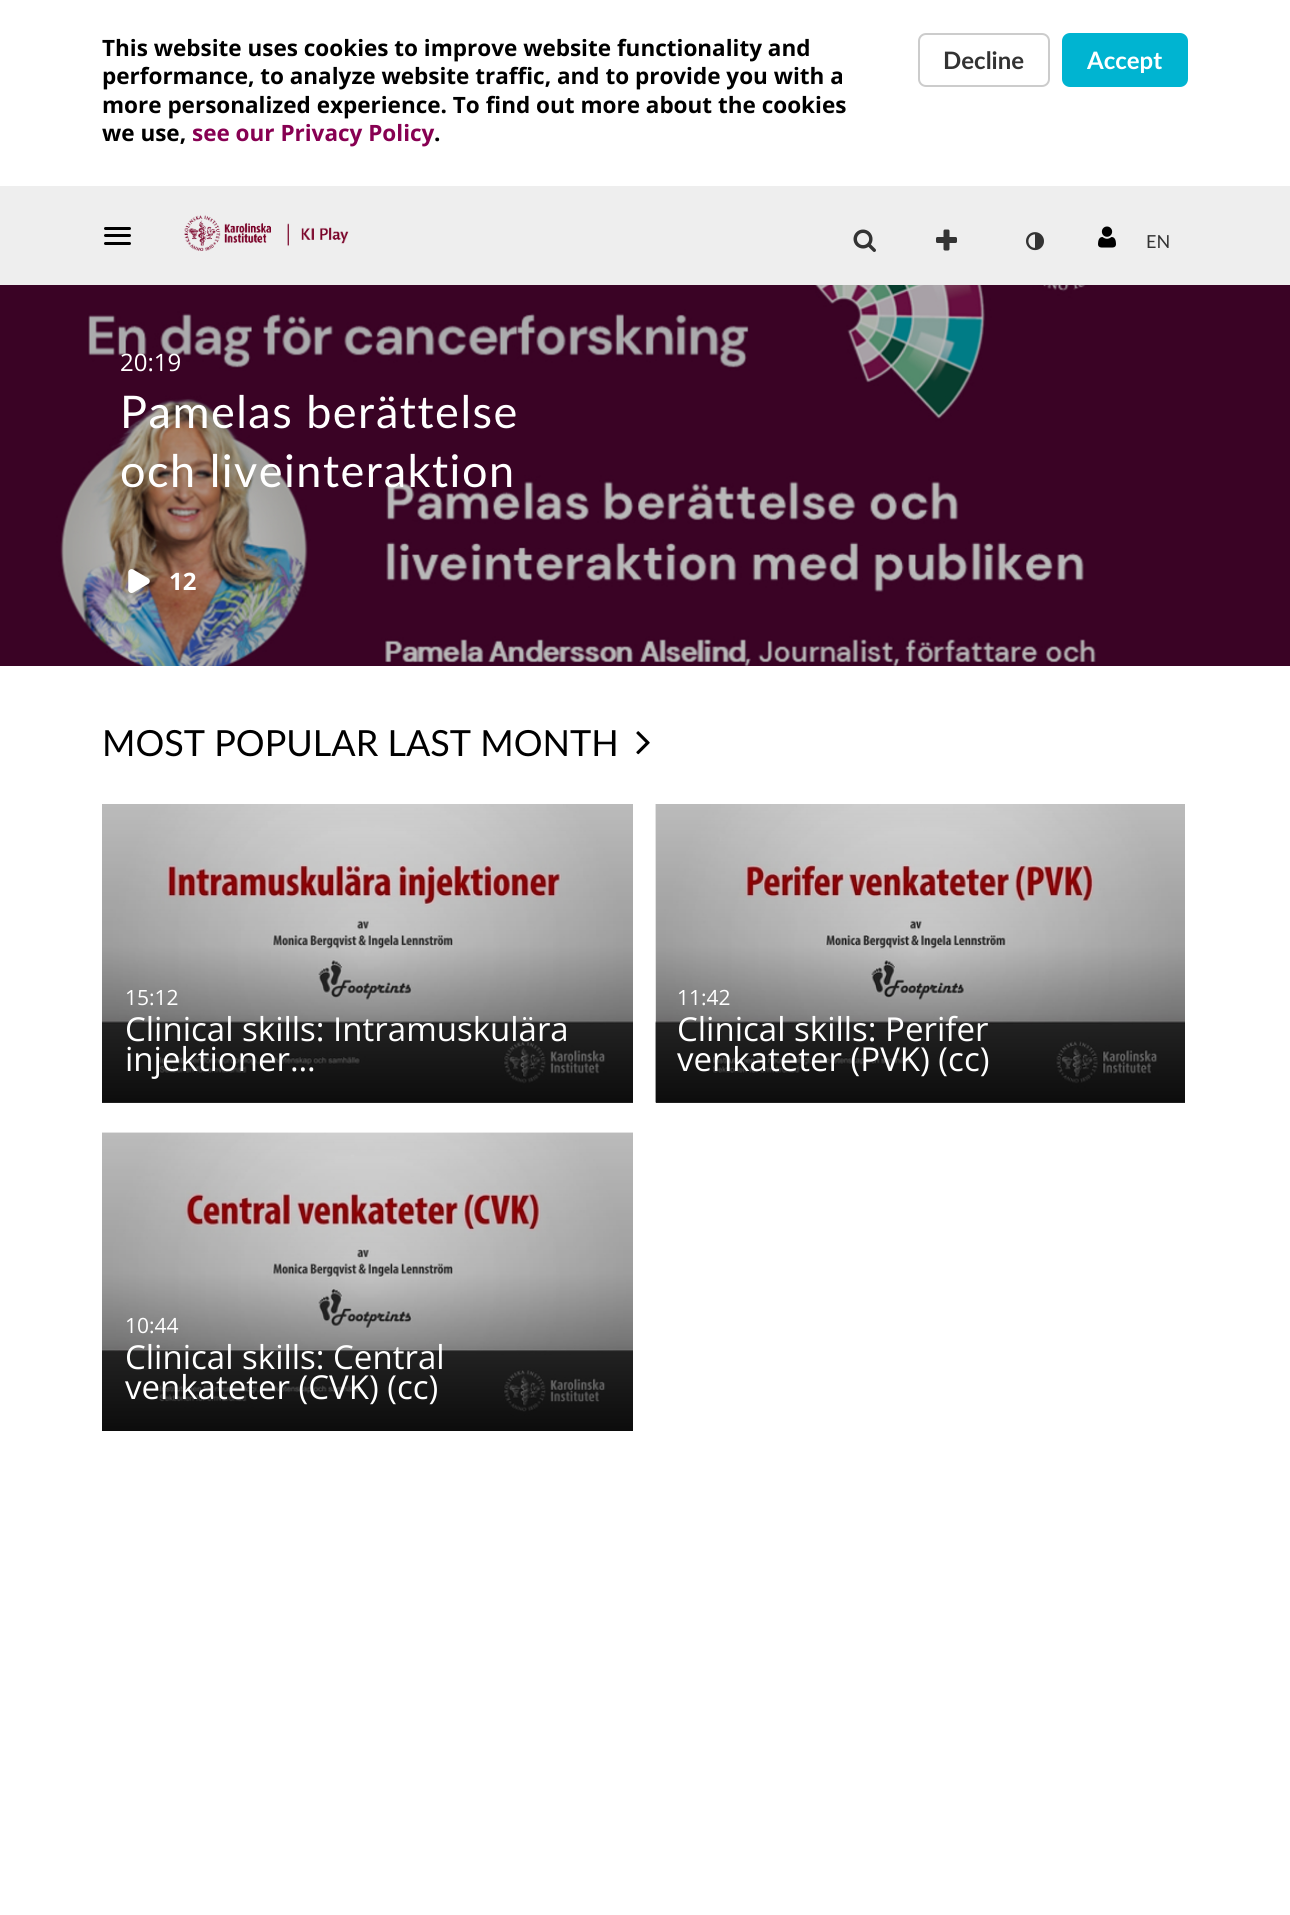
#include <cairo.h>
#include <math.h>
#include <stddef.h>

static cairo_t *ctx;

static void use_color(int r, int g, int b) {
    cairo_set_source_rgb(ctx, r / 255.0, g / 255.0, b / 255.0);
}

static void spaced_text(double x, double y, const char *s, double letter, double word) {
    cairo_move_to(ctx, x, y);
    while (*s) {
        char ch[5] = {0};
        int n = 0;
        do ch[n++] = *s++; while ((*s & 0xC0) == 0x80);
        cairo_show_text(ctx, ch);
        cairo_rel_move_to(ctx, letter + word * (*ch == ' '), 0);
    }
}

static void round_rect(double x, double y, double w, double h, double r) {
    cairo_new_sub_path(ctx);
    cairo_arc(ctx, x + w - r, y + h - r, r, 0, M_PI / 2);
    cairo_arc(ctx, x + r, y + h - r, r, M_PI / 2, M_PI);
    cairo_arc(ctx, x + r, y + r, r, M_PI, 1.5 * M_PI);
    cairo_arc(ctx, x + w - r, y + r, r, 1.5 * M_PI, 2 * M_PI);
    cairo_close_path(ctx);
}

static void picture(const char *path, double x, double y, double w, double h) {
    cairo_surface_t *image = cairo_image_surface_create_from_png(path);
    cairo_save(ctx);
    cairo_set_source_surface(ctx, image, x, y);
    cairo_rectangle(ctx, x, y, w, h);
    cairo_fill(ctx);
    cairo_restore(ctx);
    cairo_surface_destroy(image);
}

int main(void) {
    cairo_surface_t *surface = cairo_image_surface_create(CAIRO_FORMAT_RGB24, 1290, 1915);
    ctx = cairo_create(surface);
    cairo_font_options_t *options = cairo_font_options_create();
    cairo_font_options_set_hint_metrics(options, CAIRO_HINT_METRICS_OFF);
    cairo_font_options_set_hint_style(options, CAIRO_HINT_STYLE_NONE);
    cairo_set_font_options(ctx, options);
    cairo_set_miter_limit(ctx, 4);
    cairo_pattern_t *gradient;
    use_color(255, 255, 255);
    cairo_paint(ctx);
    cairo_select_font_face(ctx, "Open Sans", CAIRO_FONT_SLANT_NORMAL, CAIRO_FONT_WEIGHT_BOLD);
    cairo_set_font_size(ctx, 22.5);
    use_color(0, 0, 0);
    cairo_move_to(ctx, 102, 56);
    cairo_show_text(ctx, "This website uses cookies to improve website functionality and");
    cairo_move_to(ctx, 102, 84);
    cairo_show_text(ctx, "performance, to analyze website traffic, and to provide you with a");
    cairo_move_to(ctx, 102, 113);
    cairo_show_text(ctx, "more personalized experience. To find out more about the cookies");
    cairo_move_to(ctx, 102, 141);
    cairo_show_text(ctx, "we use,");
    use_color(135, 0, 82);
    cairo_move_to(ctx, 192, 141);
    cairo_show_text(ctx, "see our Privacy Policy");
    use_color(0, 0, 0);
    cairo_move_to(ctx, 434, 141);
    cairo_show_text(ctx, ".");
    round_rect(919, 34, 130, 52, 7);
    use_color(204, 204, 204);
    cairo_stroke(ctx);
    cairo_select_font_face(ctx, "Lato", CAIRO_FONT_SLANT_NORMAL, CAIRO_FONT_WEIGHT_BOLD);
    cairo_set_font_size(ctx, 24);
    use_color(51, 51, 51);
    cairo_move_to(ctx, 943, 69);
    cairo_show_text(ctx, "Decline");
    use_color(0, 180, 209);
    round_rect(1063, 34, 124, 52, 7);
    cairo_fill_preserve(ctx);
    cairo_stroke(ctx);
    use_color(255, 255, 255);
    cairo_move_to(ctx, 1087, 69);
    cairo_show_text(ctx, "Accept");
    use_color(238, 238, 238);
    cairo_rectangle(ctx, 0, 186, 1290, 99);
    cairo_fill(ctx);
    use_color(0, 0, 0);
    round_rect(104, 227, 27, 3, 1.5);
    cairo_fill(ctx);
    round_rect(104, 234, 27, 3, 1.5);
    cairo_fill(ctx);
    round_rect(104, 242, 27, 3, 1.5);
    cairo_fill(ctx);
    picture("img1.png", 184, 215, 165, 36);
    picture("img2.png", 853, 229, 23, 23);
    picture("img3.png", 936, 229, 21, 22);
    picture("img4.png", 1026, 232, 18, 19);
    picture("img5.png", 1098, 226, 18, 22);
    cairo_select_font_face(ctx, "Lato", CAIRO_FONT_SLANT_NORMAL, CAIRO_FONT_WEIGHT_NORMAL);
    cairo_set_font_size(ctx, 18);
    use_color(51, 51, 51);
    cairo_move_to(ctx, 1146, 248);
    cairo_show_text(ctx, "EN");
    picture("img6.png", 0, 285, 1290, 381);
    cairo_select_font_face(ctx, "Open Sans", CAIRO_FONT_SLANT_NORMAL, CAIRO_FONT_WEIGHT_NORMAL);
    cairo_set_font_size(ctx, 24);
    use_color(255, 255, 255);
    cairo_move_to(ctx, 120, 371);
    cairo_show_text(ctx, "20:19");
    cairo_select_font_face(ctx, "Lato", CAIRO_FONT_SLANT_NORMAL, CAIRO_FONT_WEIGHT_NORMAL);
    cairo_set_font_size(ctx, 45);
    spaced_text(120, 428, "Pamelas berättelse", 1.5, 0);
    spaced_text(120, 487, "och liveinteraktion", 1.5, 0);
    picture("img7.png", 128, 569, 22, 24);
    cairo_select_font_face(ctx, "Open Sans", CAIRO_FONT_SLANT_NORMAL, CAIRO_FONT_WEIGHT_BOLD);
    cairo_set_font_size(ctx, 24);
    cairo_move_to(ctx, 169, 590);
    cairo_show_text(ctx, "12");
    cairo_select_font_face(ctx, "Lato", CAIRO_FONT_SLANT_NORMAL, CAIRO_FONT_WEIGHT_NORMAL);
    cairo_set_font_size(ctx, 36);
    use_color(0, 0, 0);
    cairo_move_to(ctx, 102, 756);
    cairo_show_text(ctx, "MOST POPULAR LAST MONTH");
    picture("img8.png", 636, 731, 14, 24);
    picture("img9.png", 102, 804, 531, 299);
    gradient = cairo_pattern_create_linear(368, 1103, 368, 804);
    cairo_pattern_add_color_stop_rgba(gradient, 0, 0, 0, 0, 0.8);
    cairo_pattern_add_color_stop_rgba(gradient, 0.3, 0, 0, 0, 0.4);
    cairo_pattern_add_color_stop_rgba(gradient, 0.53, 0, 0, 0, 0.2);
    cairo_pattern_add_color_stop_rgba(gradient, 0.71, 0, 0, 0, 0.15);
    cairo_pattern_add_color_stop_rgba(gradient, 1, 0, 0, 0, 0.05);
    cairo_set_source(ctx, gradient);
    cairo_pattern_destroy(gradient);
    cairo_rectangle(ctx, 102, 804, 531, 299);
    cairo_fill(ctx);
    cairo_select_font_face(ctx, "Open Sans", CAIRO_FONT_SLANT_NORMAL, CAIRO_FONT_WEIGHT_NORMAL);
    cairo_set_font_size(ctx, 21);
    use_color(255, 255, 255);
    cairo_move_to(ctx, 125, 1005);
    cairo_show_text(ctx, "15:12");
    cairo_set_font_size(ctx, 33);
    cairo_move_to(ctx, 125, 1041);
    cairo_show_text(ctx, "Clinical skills: Intramuskulära");
    cairo_move_to(ctx, 125, 1071);
    cairo_show_text(ctx, "injektioner…");
    picture("img10.png", 655, 804, 530, 299);
    gradient = cairo_pattern_create_linear(920, 1103, 920, 804);
    cairo_pattern_add_color_stop_rgba(gradient, 0, 0, 0, 0, 0.8);
    cairo_pattern_add_color_stop_rgba(gradient, 0.3, 0, 0, 0, 0.4);
    cairo_pattern_add_color_stop_rgba(gradient, 0.53, 0, 0, 0, 0.2);
    cairo_pattern_add_color_stop_rgba(gradient, 0.71, 0, 0, 0, 0.15);
    cairo_pattern_add_color_stop_rgba(gradient, 1, 0, 0, 0, 0.05);
    cairo_set_source(ctx, gradient);
    cairo_pattern_destroy(gradient);
    cairo_rectangle(ctx, 656, 804, 529, 299);
    cairo_fill(ctx);
    cairo_set_font_size(ctx, 21);
    use_color(255, 255, 255);
    cairo_move_to(ctx, 677, 1005);
    cairo_show_text(ctx, "11:42");
    cairo_set_font_size(ctx, 33);
    cairo_move_to(ctx, 677, 1041);
    cairo_show_text(ctx, "Clinical skills: Perifer");
    cairo_move_to(ctx, 677, 1071);
    cairo_show_text(ctx, "venkateter (PVK) (cc)");
    picture("img11.png", 102, 1132, 531, 299);
    cairo_set_font_size(ctx, 21);
    cairo_move_to(ctx, 125, 1333);
    cairo_show_text(ctx, "10:44");
    cairo_set_font_size(ctx, 33);
    cairo_move_to(ctx, 125, 1369);
    cairo_show_text(ctx, "Clinical skills: Central");
    cairo_move_to(ctx, 125, 1399);
    cairo_show_text(ctx, "venkateter (CVK) (cc)");
    cairo_surface_write_to_png(surface, "result.png");
    cairo_font_options_destroy(options);
    cairo_destroy(ctx);
    cairo_surface_destroy(surface);
    return 0;
}
